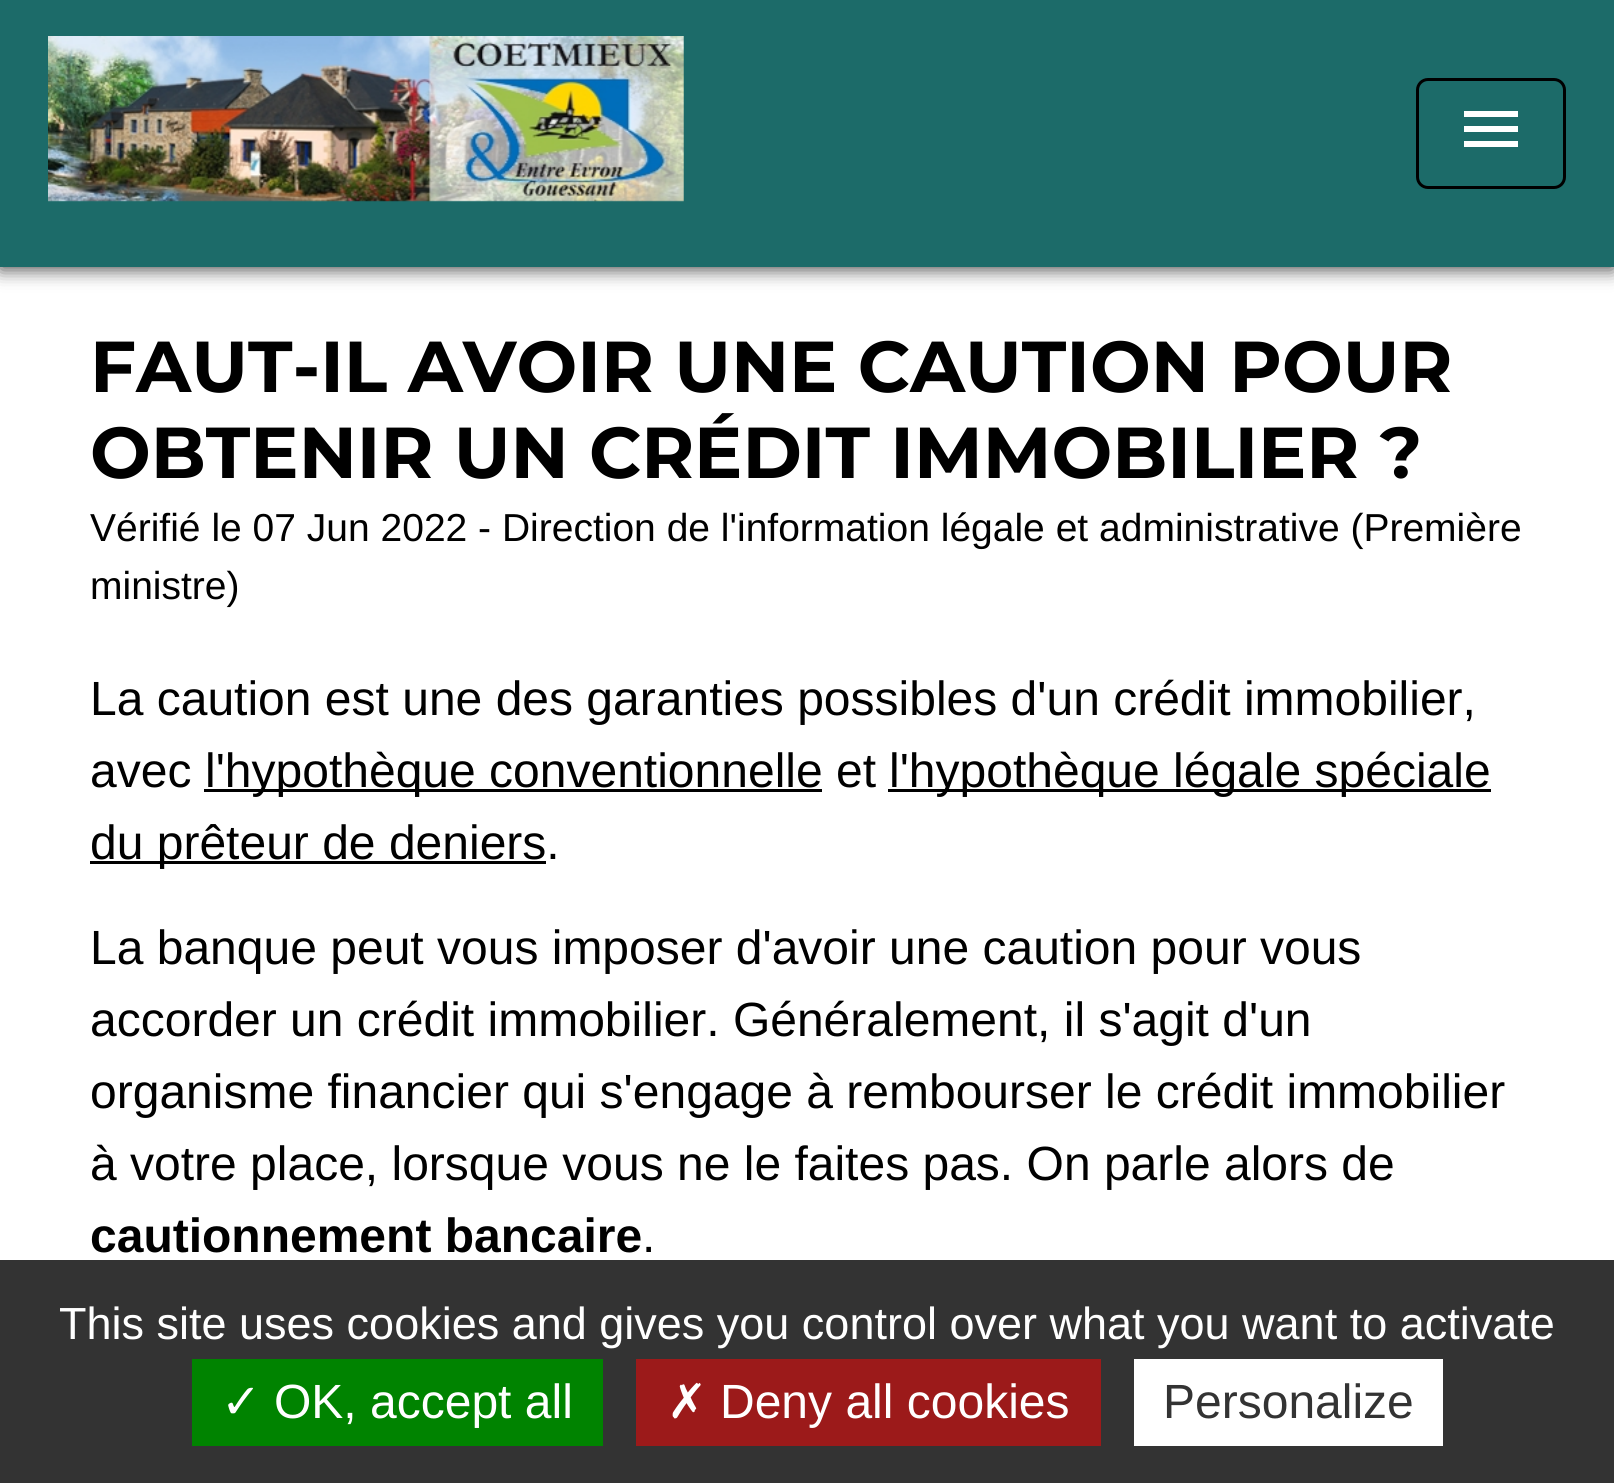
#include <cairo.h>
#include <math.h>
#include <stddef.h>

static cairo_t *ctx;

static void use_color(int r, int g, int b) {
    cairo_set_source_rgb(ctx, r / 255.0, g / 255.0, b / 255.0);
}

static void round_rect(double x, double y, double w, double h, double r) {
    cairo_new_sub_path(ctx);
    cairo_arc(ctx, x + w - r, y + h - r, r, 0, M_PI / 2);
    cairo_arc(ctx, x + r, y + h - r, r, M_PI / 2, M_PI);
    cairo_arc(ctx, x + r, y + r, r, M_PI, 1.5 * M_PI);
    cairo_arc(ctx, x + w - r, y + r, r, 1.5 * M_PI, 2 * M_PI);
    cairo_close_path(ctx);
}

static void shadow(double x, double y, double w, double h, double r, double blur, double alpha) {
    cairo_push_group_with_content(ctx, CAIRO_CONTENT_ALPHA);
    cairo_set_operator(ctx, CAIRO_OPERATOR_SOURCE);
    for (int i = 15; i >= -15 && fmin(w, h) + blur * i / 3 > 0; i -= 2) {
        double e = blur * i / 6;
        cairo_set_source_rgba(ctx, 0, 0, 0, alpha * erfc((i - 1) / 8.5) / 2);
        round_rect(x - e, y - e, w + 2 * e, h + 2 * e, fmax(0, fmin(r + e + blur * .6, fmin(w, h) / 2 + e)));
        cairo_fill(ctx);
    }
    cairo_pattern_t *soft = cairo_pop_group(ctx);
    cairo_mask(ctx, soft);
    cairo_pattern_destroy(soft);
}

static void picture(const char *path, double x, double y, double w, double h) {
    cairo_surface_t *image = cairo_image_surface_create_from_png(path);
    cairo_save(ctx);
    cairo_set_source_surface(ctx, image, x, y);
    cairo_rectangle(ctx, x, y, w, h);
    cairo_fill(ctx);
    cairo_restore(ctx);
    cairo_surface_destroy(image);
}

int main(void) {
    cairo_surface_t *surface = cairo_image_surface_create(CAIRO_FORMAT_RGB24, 1614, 1483);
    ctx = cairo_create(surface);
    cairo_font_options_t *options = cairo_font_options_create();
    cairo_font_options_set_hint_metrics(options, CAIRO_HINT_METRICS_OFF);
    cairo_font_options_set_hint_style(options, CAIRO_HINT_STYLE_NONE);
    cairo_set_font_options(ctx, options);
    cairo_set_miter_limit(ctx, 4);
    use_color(255, 255, 255);
    cairo_paint(ctx);
    use_color(83, 83, 83);
    shadow(0, 3, 1614, 267, 0, 9, 1);
    use_color(28, 107, 105);
    cairo_rectangle(ctx, 0, 0, 1614, 267);
    cairo_fill(ctx);
    picture("img1.png", 48, 36, 636, 166);
    round_rect(1417.5, 79.5, 147, 108, 10.5);
    use_color(0, 0, 0);
    cairo_set_line_width(ctx, 3);
    cairo_stroke(ctx);
    use_color(255, 255, 255);
    cairo_new_path(ctx);
    cairo_move_to(ctx, 1464, 111);
    cairo_line_to(ctx, 1518, 111);
    cairo_line_to(ctx, 1518, 117);
    cairo_line_to(ctx, 1464, 117);
    cairo_close_path(ctx);
    cairo_move_to(ctx, 1464, 132);
    cairo_line_to(ctx, 1464, 126);
    cairo_line_to(ctx, 1518, 126);
    cairo_line_to(ctx, 1518, 132);
    cairo_close_path(ctx);
    cairo_move_to(ctx, 1464, 147);
    cairo_line_to(ctx, 1464, 141);
    cairo_line_to(ctx, 1518, 141);
    cairo_line_to(ctx, 1518, 147);
    cairo_close_path(ctx);
    cairo_fill(ctx);
    cairo_select_font_face(ctx, "Montserrat", CAIRO_FONT_SLANT_NORMAL, CAIRO_FONT_WEIGHT_BOLD);
    cairo_set_font_size(ctx, 72);
    use_color(0, 0, 0);
    cairo_move_to(ctx, 90, 392);
    cairo_show_text(ctx, "FAUT-IL AVOIR UNE CAUTION POUR");
    cairo_move_to(ctx, 90, 478);
    cairo_show_text(ctx, "OBTENIR UN CRÉDIT IMMOBILIER ?");
    cairo_select_font_face(ctx, "Liberation Sans", CAIRO_FONT_SLANT_NORMAL, CAIRO_FONT_WEIGHT_NORMAL);
    cairo_set_font_size(ctx, 39);
    cairo_move_to(ctx, 90, 541);
    cairo_show_text(ctx, "Vérifié le 07 Jun 2022 - Direction de l'information légale et administrative (Première");
    cairo_move_to(ctx, 90, 599);
    cairo_show_text(ctx, "ministre)");
    cairo_set_font_size(ctx, 48);
    cairo_move_to(ctx, 90, 715);
    cairo_show_text(ctx, "La caution est une des garanties possibles d'un crédit immobilier,");
    cairo_move_to(ctx, 90, 787);
    cairo_show_text(ctx, "avec");
    cairo_rectangle(ctx, 204, 789, 618, 3);
    cairo_fill(ctx);
    cairo_move_to(ctx, 205, 787);
    cairo_show_text(ctx, "l'hypothèque conventionnelle et");
    cairo_rectangle(ctx, 888, 789, 603, 3);
    cairo_fill(ctx);
    cairo_move_to(ctx, 889, 787);
    cairo_show_text(ctx, "l'hypothèque légale spéciale");
    cairo_rectangle(ctx, 90, 861, 456, 3);
    cairo_fill(ctx);
    cairo_move_to(ctx, 90, 859);
    cairo_show_text(ctx, "du prêteur de deniers.");
    cairo_move_to(ctx, 90, 964);
    cairo_show_text(ctx, "La banque peut vous imposer d'avoir une caution pour vous");
    cairo_move_to(ctx, 90, 1036);
    cairo_show_text(ctx, "accorder un crédit immobilier. Généralement, il s'agit d'un");
    cairo_move_to(ctx, 90, 1108);
    cairo_show_text(ctx, "organisme financier qui s'engage à rembourser le crédit immobilier");
    cairo_move_to(ctx, 90, 1180);
    cairo_show_text(ctx, "à votre place, lorsque vous ne le faites pas. On parle alors de");
    cairo_select_font_face(ctx, "Liberation Sans", CAIRO_FONT_SLANT_NORMAL, CAIRO_FONT_WEIGHT_BOLD);
    cairo_move_to(ctx, 90, 1252);
    cairo_show_text(ctx, "cautionnement bancaire");
    cairo_select_font_face(ctx, "Liberation Sans", CAIRO_FONT_SLANT_NORMAL, CAIRO_FONT_WEIGHT_NORMAL);
    cairo_move_to(ctx, 642, 1252);
    cairo_show_text(ctx, ".");
    use_color(51, 51, 51);
    cairo_rectangle(ctx, 0, 1260, 1614, 223);
    cairo_fill(ctx);
    cairo_set_font_size(ctx, 45);
    use_color(255, 255, 255);
    cairo_move_to(ctx, 59, 1339);
    cairo_show_text(ctx, "This site uses cookies and gives you control over what you want to activate");
    use_color(0, 131, 0);
    cairo_rectangle(ctx, 192, 1359, 411, 87);
    cairo_fill(ctx);
    cairo_select_font_face(ctx, "DejaVu Sans", CAIRO_FONT_SLANT_NORMAL, CAIRO_FONT_WEIGHT_NORMAL);
    cairo_set_font_size(ctx, 48);
    use_color(255, 255, 255);
    cairo_move_to(ctx, 221, 1418);
    cairo_show_text(ctx, "✓");
    cairo_select_font_face(ctx, "Liberation Sans", CAIRO_FONT_SLANT_NORMAL, CAIRO_FONT_WEIGHT_NORMAL);
    cairo_move_to(ctx, 274, 1418);
    cairo_show_text(ctx, "OK, accept all");
    use_color(156, 26, 26);
    cairo_rectangle(ctx, 636, 1359, 465, 87);
    cairo_fill(ctx);
    cairo_select_font_face(ctx, "DejaVu Sans", CAIRO_FONT_SLANT_NORMAL, CAIRO_FONT_WEIGHT_NORMAL);
    use_color(255, 255, 255);
    cairo_move_to(ctx, 667, 1418);
    cairo_show_text(ctx, "✗");
    cairo_select_font_face(ctx, "Liberation Sans", CAIRO_FONT_SLANT_NORMAL, CAIRO_FONT_WEIGHT_NORMAL);
    cairo_move_to(ctx, 720, 1418);
    cairo_show_text(ctx, "Deny all cookies");
    cairo_rectangle(ctx, 1134, 1359, 309, 87);
    cairo_fill(ctx);
    use_color(51, 51, 51);
    cairo_move_to(ctx, 1163, 1418);
    cairo_show_text(ctx, "Personalize");
    cairo_surface_write_to_png(surface, "result.png");
    cairo_font_options_destroy(options);
    cairo_destroy(ctx);
    cairo_surface_destroy(surface);
    return 0;
}
